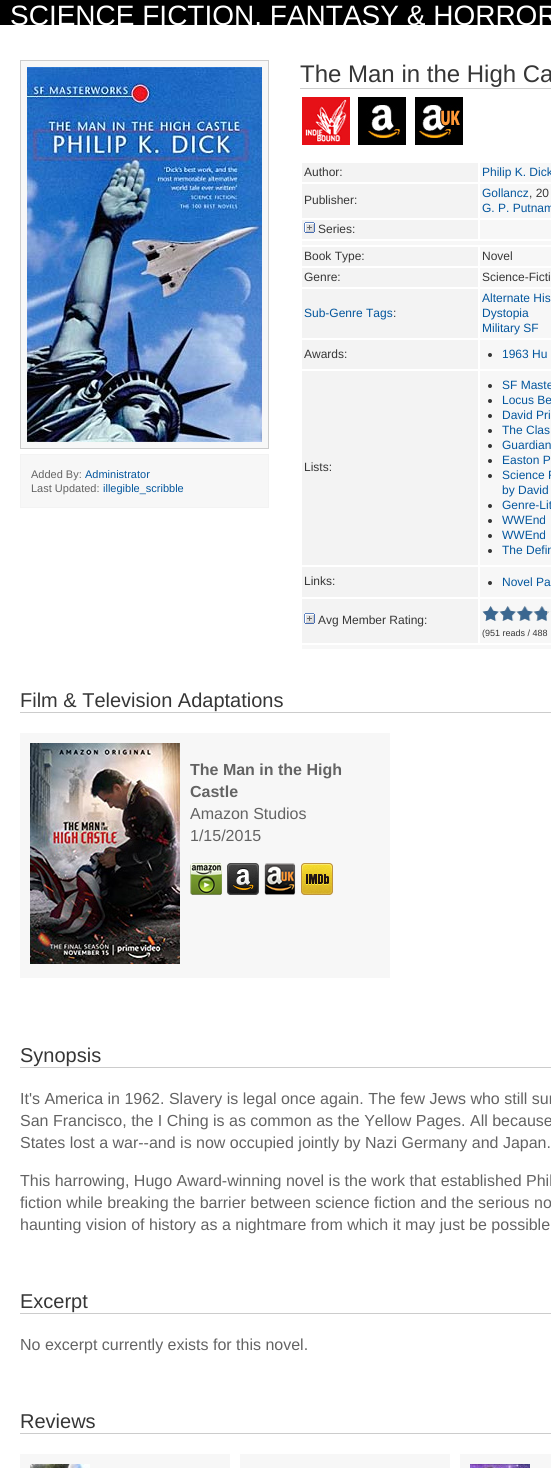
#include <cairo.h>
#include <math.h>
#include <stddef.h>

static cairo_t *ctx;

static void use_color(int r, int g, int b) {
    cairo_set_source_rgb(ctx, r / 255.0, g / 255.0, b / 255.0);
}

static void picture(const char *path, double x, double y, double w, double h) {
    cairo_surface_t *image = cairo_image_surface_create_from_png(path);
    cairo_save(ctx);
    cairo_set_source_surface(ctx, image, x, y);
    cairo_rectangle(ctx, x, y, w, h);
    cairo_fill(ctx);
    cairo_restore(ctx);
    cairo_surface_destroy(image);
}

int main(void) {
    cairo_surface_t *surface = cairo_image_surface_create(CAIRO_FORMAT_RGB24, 551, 1468);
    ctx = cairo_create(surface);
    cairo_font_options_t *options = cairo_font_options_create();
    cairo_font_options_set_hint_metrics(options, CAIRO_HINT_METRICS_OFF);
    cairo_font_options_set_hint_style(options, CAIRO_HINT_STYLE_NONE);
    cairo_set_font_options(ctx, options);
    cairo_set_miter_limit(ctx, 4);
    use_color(0, 0, 0);
    cairo_paint(ctx);
    use_color(255, 255, 255);
    cairo_rectangle(ctx, 0, 25, 551, 1443);
    cairo_fill(ctx);
    cairo_select_font_face(ctx, "Liberation Sans", CAIRO_FONT_SLANT_NORMAL, CAIRO_FONT_WEIGHT_NORMAL);
    cairo_set_font_size(ctx, 28);
    cairo_move_to(ctx, 10, 25);
    cairo_show_text(ctx, "SCIENCE FICTION, FANTASY & HORROR");
    use_color(247, 247, 247);
    cairo_rectangle(ctx, 20.5, 60.5, 248, 388);
    cairo_fill_preserve(ctx);
    use_color(204, 204, 204);
    cairo_set_line_width(ctx, 1);
    cairo_stroke(ctx);
    picture("img1.png", 27, 67, 235, 375);
    use_color(247, 247, 247);
    cairo_rectangle(ctx, 20.5, 454.5, 248, 53);
    cairo_fill_preserve(ctx);
    use_color(243, 243, 243);
    cairo_stroke(ctx);
    cairo_set_font_size(ctx, 11);
    use_color(99, 99, 99);
    cairo_move_to(ctx, 31, 478);
    cairo_show_text(ctx, "Added By:");
    use_color(3, 86, 157);
    cairo_move_to(ctx, 85, 478);
    cairo_show_text(ctx, "Administrator");
    use_color(99, 99, 99);
    cairo_move_to(ctx, 31, 492);
    cairo_show_text(ctx, "Last Updated:");
    use_color(3, 86, 157);
    cairo_move_to(ctx, 103, 492);
    cairo_show_text(ctx, "illegible_scribble");
    use_color(204, 204, 204);
    cairo_rectangle(ctx, 300, 88, 251, 1);
    cairo_fill(ctx);
    cairo_set_font_size(ctx, 24);
    use_color(54, 54, 54);
    cairo_move_to(ctx, 300, 82);
    cairo_show_text(ctx, "The Man in the High Ca");
    picture("img2.png", 302, 97, 48, 48);
    picture("img3.png", 358, 97, 48, 48);
    picture("img4.png", 415, 97, 48, 48);
    use_color(243, 243, 243);
    cairo_rectangle(ctx, 302, 163, 176, 19);
    cairo_fill(ctx);
    cairo_set_font_size(ctx, 12);
    use_color(54, 54, 54);
    cairo_move_to(ctx, 304, 176);
    cairo_show_text(ctx, "Author:");
    use_color(247, 247, 247);
    cairo_rectangle(ctx, 480, 163, 71, 19);
    cairo_fill(ctx);
    use_color(3, 86, 157);
    cairo_move_to(ctx, 482, 176);
    cairo_show_text(ctx, "Philip K. Dick");
    use_color(243, 243, 243);
    cairo_rectangle(ctx, 302, 184, 176, 34);
    cairo_fill(ctx);
    use_color(54, 54, 54);
    cairo_move_to(ctx, 304, 204);
    cairo_show_text(ctx, "Publisher:");
    use_color(247, 247, 247);
    cairo_rectangle(ctx, 480, 184, 71, 34);
    cairo_fill(ctx);
    use_color(3, 86, 157);
    cairo_move_to(ctx, 482, 197);
    cairo_show_text(ctx, "Gollancz");
    use_color(54, 54, 54);
    cairo_move_to(ctx, 529, 197);
    cairo_show_text(ctx, ", 20");
    use_color(3, 86, 157);
    cairo_move_to(ctx, 482, 212);
    cairo_show_text(ctx, "G. P. Putnam");
    use_color(243, 243, 243);
    cairo_rectangle(ctx, 302, 220, 176, 19);
    cairo_fill(ctx);
    picture("img5.png", 304, 222, 11, 11);
    use_color(54, 54, 54);
    cairo_move_to(ctx, 318, 233);
    cairo_show_text(ctx, "Series:");
    use_color(247, 247, 247);
    cairo_rectangle(ctx, 480, 220, 71, 19);
    cairo_fill(ctx);
    cairo_rectangle(ctx, 302, 241, 249, 4);
    cairo_fill(ctx);
    use_color(243, 243, 243);
    cairo_rectangle(ctx, 302, 247, 176, 19);
    cairo_fill(ctx);
    use_color(54, 54, 54);
    cairo_move_to(ctx, 304, 260);
    cairo_show_text(ctx, "Book Type:");
    use_color(247, 247, 247);
    cairo_rectangle(ctx, 480, 247, 71, 19);
    cairo_fill(ctx);
    use_color(54, 54, 54);
    cairo_move_to(ctx, 482, 260);
    cairo_show_text(ctx, "Novel");
    use_color(243, 243, 243);
    cairo_rectangle(ctx, 302, 268, 176, 19);
    cairo_fill(ctx);
    use_color(54, 54, 54);
    cairo_move_to(ctx, 304, 281);
    cairo_show_text(ctx, "Genre:");
    use_color(247, 247, 247);
    cairo_rectangle(ctx, 480, 268, 71, 19);
    cairo_fill(ctx);
    use_color(54, 54, 54);
    cairo_move_to(ctx, 482, 281);
    cairo_show_text(ctx, "Science-Ficti");
    use_color(243, 243, 243);
    cairo_rectangle(ctx, 302, 289, 176, 49);
    cairo_fill(ctx);
    use_color(3, 86, 157);
    cairo_move_to(ctx, 304, 317);
    cairo_show_text(ctx, "Sub-Genre Tags");
    use_color(54, 54, 54);
    cairo_move_to(ctx, 393, 317);
    cairo_show_text(ctx, ":");
    use_color(247, 247, 247);
    cairo_rectangle(ctx, 480, 289, 71, 49);
    cairo_fill(ctx);
    use_color(3, 86, 157);
    cairo_move_to(ctx, 482, 302);
    cairo_show_text(ctx, "Alternate His");
    cairo_move_to(ctx, 482, 317);
    cairo_show_text(ctx, "Dystopia");
    cairo_move_to(ctx, 482, 332);
    cairo_show_text(ctx, "Military SF");
    use_color(243, 243, 243);
    cairo_rectangle(ctx, 302, 340, 176, 29);
    cairo_fill(ctx);
    use_color(54, 54, 54);
    cairo_move_to(ctx, 304, 358);
    cairo_show_text(ctx, "Awards:");
    use_color(247, 247, 247);
    cairo_rectangle(ctx, 480, 340, 71, 29);
    cairo_fill(ctx);
    use_color(54, 54, 54);
    cairo_arc(ctx, 490, 355, 2, 0, 2 * M_PI);
    cairo_fill(ctx);
    use_color(3, 86, 157);
    cairo_move_to(ctx, 502, 358);
    cairo_show_text(ctx, "1963 Hu");
    use_color(243, 243, 243);
    cairo_rectangle(ctx, 302, 371, 176, 194);
    cairo_fill(ctx);
    use_color(54, 54, 54);
    cairo_move_to(ctx, 304, 471);
    cairo_show_text(ctx, "Lists:");
    use_color(247, 247, 247);
    cairo_rectangle(ctx, 480, 371, 71, 194);
    cairo_fill(ctx);
    use_color(54, 54, 54);
    cairo_arc(ctx, 490, 386, 2, 0, 2 * M_PI);
    cairo_fill(ctx);
    use_color(3, 86, 157);
    cairo_move_to(ctx, 502, 389);
    cairo_show_text(ctx, "SF Maste");
    use_color(54, 54, 54);
    cairo_new_path(ctx);
    cairo_arc(ctx, 490, 401, 2, 0, 2 * M_PI);
    cairo_fill(ctx);
    use_color(3, 86, 157);
    cairo_move_to(ctx, 502, 404);
    cairo_show_text(ctx, "Locus Be");
    use_color(54, 54, 54);
    cairo_new_path(ctx);
    cairo_arc(ctx, 490, 416, 2, 0, 2 * M_PI);
    cairo_fill(ctx);
    use_color(3, 86, 157);
    cairo_move_to(ctx, 502, 419);
    cairo_show_text(ctx, "David Pri");
    use_color(54, 54, 54);
    cairo_new_path(ctx);
    cairo_arc(ctx, 490, 431, 2, 0, 2 * M_PI);
    cairo_fill(ctx);
    use_color(3, 86, 157);
    cairo_move_to(ctx, 502, 434);
    cairo_show_text(ctx, "The Clas");
    use_color(54, 54, 54);
    cairo_new_path(ctx);
    cairo_arc(ctx, 490, 446, 2, 0, 2 * M_PI);
    cairo_fill(ctx);
    use_color(3, 86, 157);
    cairo_move_to(ctx, 502, 449);
    cairo_show_text(ctx, "Guardian");
    use_color(54, 54, 54);
    cairo_new_path(ctx);
    cairo_arc(ctx, 490, 461, 2, 0, 2 * M_PI);
    cairo_fill(ctx);
    use_color(3, 86, 157);
    cairo_move_to(ctx, 502, 464);
    cairo_show_text(ctx, "Easton P");
    use_color(54, 54, 54);
    cairo_new_path(ctx);
    cairo_arc(ctx, 490, 476, 2, 0, 2 * M_PI);
    cairo_fill(ctx);
    use_color(3, 86, 157);
    cairo_move_to(ctx, 502, 479);
    cairo_show_text(ctx, "Science F");
    cairo_move_to(ctx, 502, 494);
    cairo_show_text(ctx, "by David");
    use_color(54, 54, 54);
    cairo_new_path(ctx);
    cairo_arc(ctx, 490, 506, 2, 0, 2 * M_PI);
    cairo_fill(ctx);
    use_color(3, 86, 157);
    cairo_move_to(ctx, 502, 509);
    cairo_show_text(ctx, "Genre-Lit");
    use_color(54, 54, 54);
    cairo_new_path(ctx);
    cairo_arc(ctx, 490, 521, 2, 0, 2 * M_PI);
    cairo_fill(ctx);
    use_color(3, 86, 157);
    cairo_move_to(ctx, 502, 524);
    cairo_show_text(ctx, "WWEnd");
    use_color(54, 54, 54);
    cairo_new_path(ctx);
    cairo_arc(ctx, 490, 536, 2, 0, 2 * M_PI);
    cairo_fill(ctx);
    use_color(3, 86, 157);
    cairo_move_to(ctx, 502, 539);
    cairo_show_text(ctx, "WWEnd");
    use_color(54, 54, 54);
    cairo_new_path(ctx);
    cairo_arc(ctx, 490, 551, 2, 0, 2 * M_PI);
    cairo_fill(ctx);
    use_color(3, 86, 157);
    cairo_move_to(ctx, 502, 554);
    cairo_show_text(ctx, "The Defin");
    use_color(243, 243, 243);
    cairo_rectangle(ctx, 302, 567, 176, 30);
    cairo_fill(ctx);
    use_color(54, 54, 54);
    cairo_move_to(ctx, 304, 585);
    cairo_show_text(ctx, "Links:");
    use_color(247, 247, 247);
    cairo_rectangle(ctx, 480, 567, 71, 30);
    cairo_fill(ctx);
    use_color(54, 54, 54);
    cairo_arc(ctx, 490, 583, 2, 0, 2 * M_PI);
    cairo_fill(ctx);
    use_color(3, 86, 157);
    cairo_move_to(ctx, 502, 586);
    cairo_show_text(ctx, "Novel Pa");
    use_color(243, 243, 243);
    cairo_rectangle(ctx, 302, 599, 176, 44);
    cairo_fill(ctx);
    picture("img5.png", 304, 613, 11, 11);
    use_color(54, 54, 54);
    cairo_move_to(ctx, 318, 624);
    cairo_show_text(ctx, "Avg Member Rating:");
    use_color(247, 247, 247);
    cairo_rectangle(ctx, 480, 599, 71, 44);
    cairo_fill(ctx);
    picture("img6.png", 482, 606, 69, 15);
    picture("img7.png", 482, 606, 65, 15);
    cairo_set_font_size(ctx, 9);
    use_color(54, 54, 54);
    cairo_move_to(ctx, 482, 636);
    cairo_show_text(ctx, "(951 reads / 488");
    use_color(247, 247, 247);
    cairo_rectangle(ctx, 302, 645, 249, 4);
    cairo_fill(ctx);
    use_color(204, 204, 204);
    cairo_rectangle(ctx, 20, 712, 531, 1);
    cairo_fill(ctx);
    cairo_set_font_size(ctx, 20);
    use_color(54, 54, 54);
    cairo_move_to(ctx, 20, 707);
    cairo_show_text(ctx, "Film & Television Adaptations");
    use_color(247, 247, 247);
    cairo_rectangle(ctx, 20, 733, 370, 245);
    cairo_fill(ctx);
    picture("img8.png", 30, 743, 150, 221);
    cairo_select_font_face(ctx, "Liberation Sans", CAIRO_FONT_SLANT_NORMAL, CAIRO_FONT_WEIGHT_BOLD);
    cairo_set_font_size(ctx, 16);
    use_color(99, 99, 99);
    cairo_move_to(ctx, 190, 775);
    cairo_show_text(ctx, "The Man in the High");
    cairo_move_to(ctx, 190, 797);
    cairo_show_text(ctx, "Castle");
    cairo_select_font_face(ctx, "Liberation Sans", CAIRO_FONT_SLANT_NORMAL, CAIRO_FONT_WEIGHT_NORMAL);
    cairo_move_to(ctx, 190, 819);
    cairo_show_text(ctx, "Amazon Studios");
    cairo_move_to(ctx, 190, 841);
    cairo_show_text(ctx, "1/15/2015");
    picture("img9.png", 190, 863, 32, 32);
    picture("img10.png", 227, 863, 32, 32);
    picture("img11.png", 264, 863, 32, 32);
    picture("img12.png", 301, 863, 32, 32);
    use_color(204, 204, 204);
    cairo_rectangle(ctx, 20, 1067, 531, 1);
    cairo_fill(ctx);
    cairo_set_font_size(ctx, 20);
    use_color(54, 54, 54);
    cairo_move_to(ctx, 20, 1062);
    cairo_show_text(ctx, "Synopsis");
    cairo_set_font_size(ctx, 16);
    use_color(99, 99, 99);
    cairo_move_to(ctx, 20, 1104);
    cairo_show_text(ctx, "It's America in 1962. Slavery is legal once again. The few Jews who still sur");
    cairo_move_to(ctx, 20, 1126);
    cairo_show_text(ctx, "San Francisco, the I Ching is as common as the Yellow Pages. All because");
    cairo_move_to(ctx, 20, 1148);
    cairo_show_text(ctx, "States lost a war--and is now occupied jointly by Nazi Germany and Japan.");
    cairo_move_to(ctx, 20, 1186);
    cairo_show_text(ctx, "This harrowing, Hugo Award-winning novel is the work that established Phil");
    cairo_move_to(ctx, 20, 1208);
    cairo_show_text(ctx, "fiction while breaking the barrier between science fiction and the serious no");
    cairo_move_to(ctx, 20, 1230);
    cairo_show_text(ctx, "haunting vision of history as a nightmare from which it may just be possible");
    use_color(204, 204, 204);
    cairo_rectangle(ctx, 20, 1313, 531, 1);
    cairo_fill(ctx);
    cairo_set_font_size(ctx, 20);
    use_color(54, 54, 54);
    cairo_move_to(ctx, 20, 1308);
    cairo_show_text(ctx, "Excerpt");
    cairo_set_font_size(ctx, 16);
    use_color(99, 99, 99);
    cairo_move_to(ctx, 20, 1350);
    cairo_show_text(ctx, "No excerpt currently exists for this novel.");
    use_color(204, 204, 204);
    cairo_rectangle(ctx, 20, 1433, 531, 1);
    cairo_fill(ctx);
    cairo_set_font_size(ctx, 20);
    use_color(54, 54, 54);
    cairo_move_to(ctx, 20, 1428);
    cairo_show_text(ctx, "Reviews");
    use_color(247, 247, 247);
    cairo_rectangle(ctx, 20, 1454, 210, 14);
    cairo_fill(ctx);
    picture("img13.png", 30, 1464, 60, 4);
    cairo_rectangle(ctx, 240, 1454, 210, 14);
    cairo_fill(ctx);
    cairo_rectangle(ctx, 460, 1454, 91, 14);
    cairo_fill(ctx);
    picture("img14.png", 470, 1464, 60, 4);
    cairo_surface_write_to_png(surface, "result.png");
    cairo_font_options_destroy(options);
    cairo_destroy(ctx);
    cairo_surface_destroy(surface);
    return 0;
}
